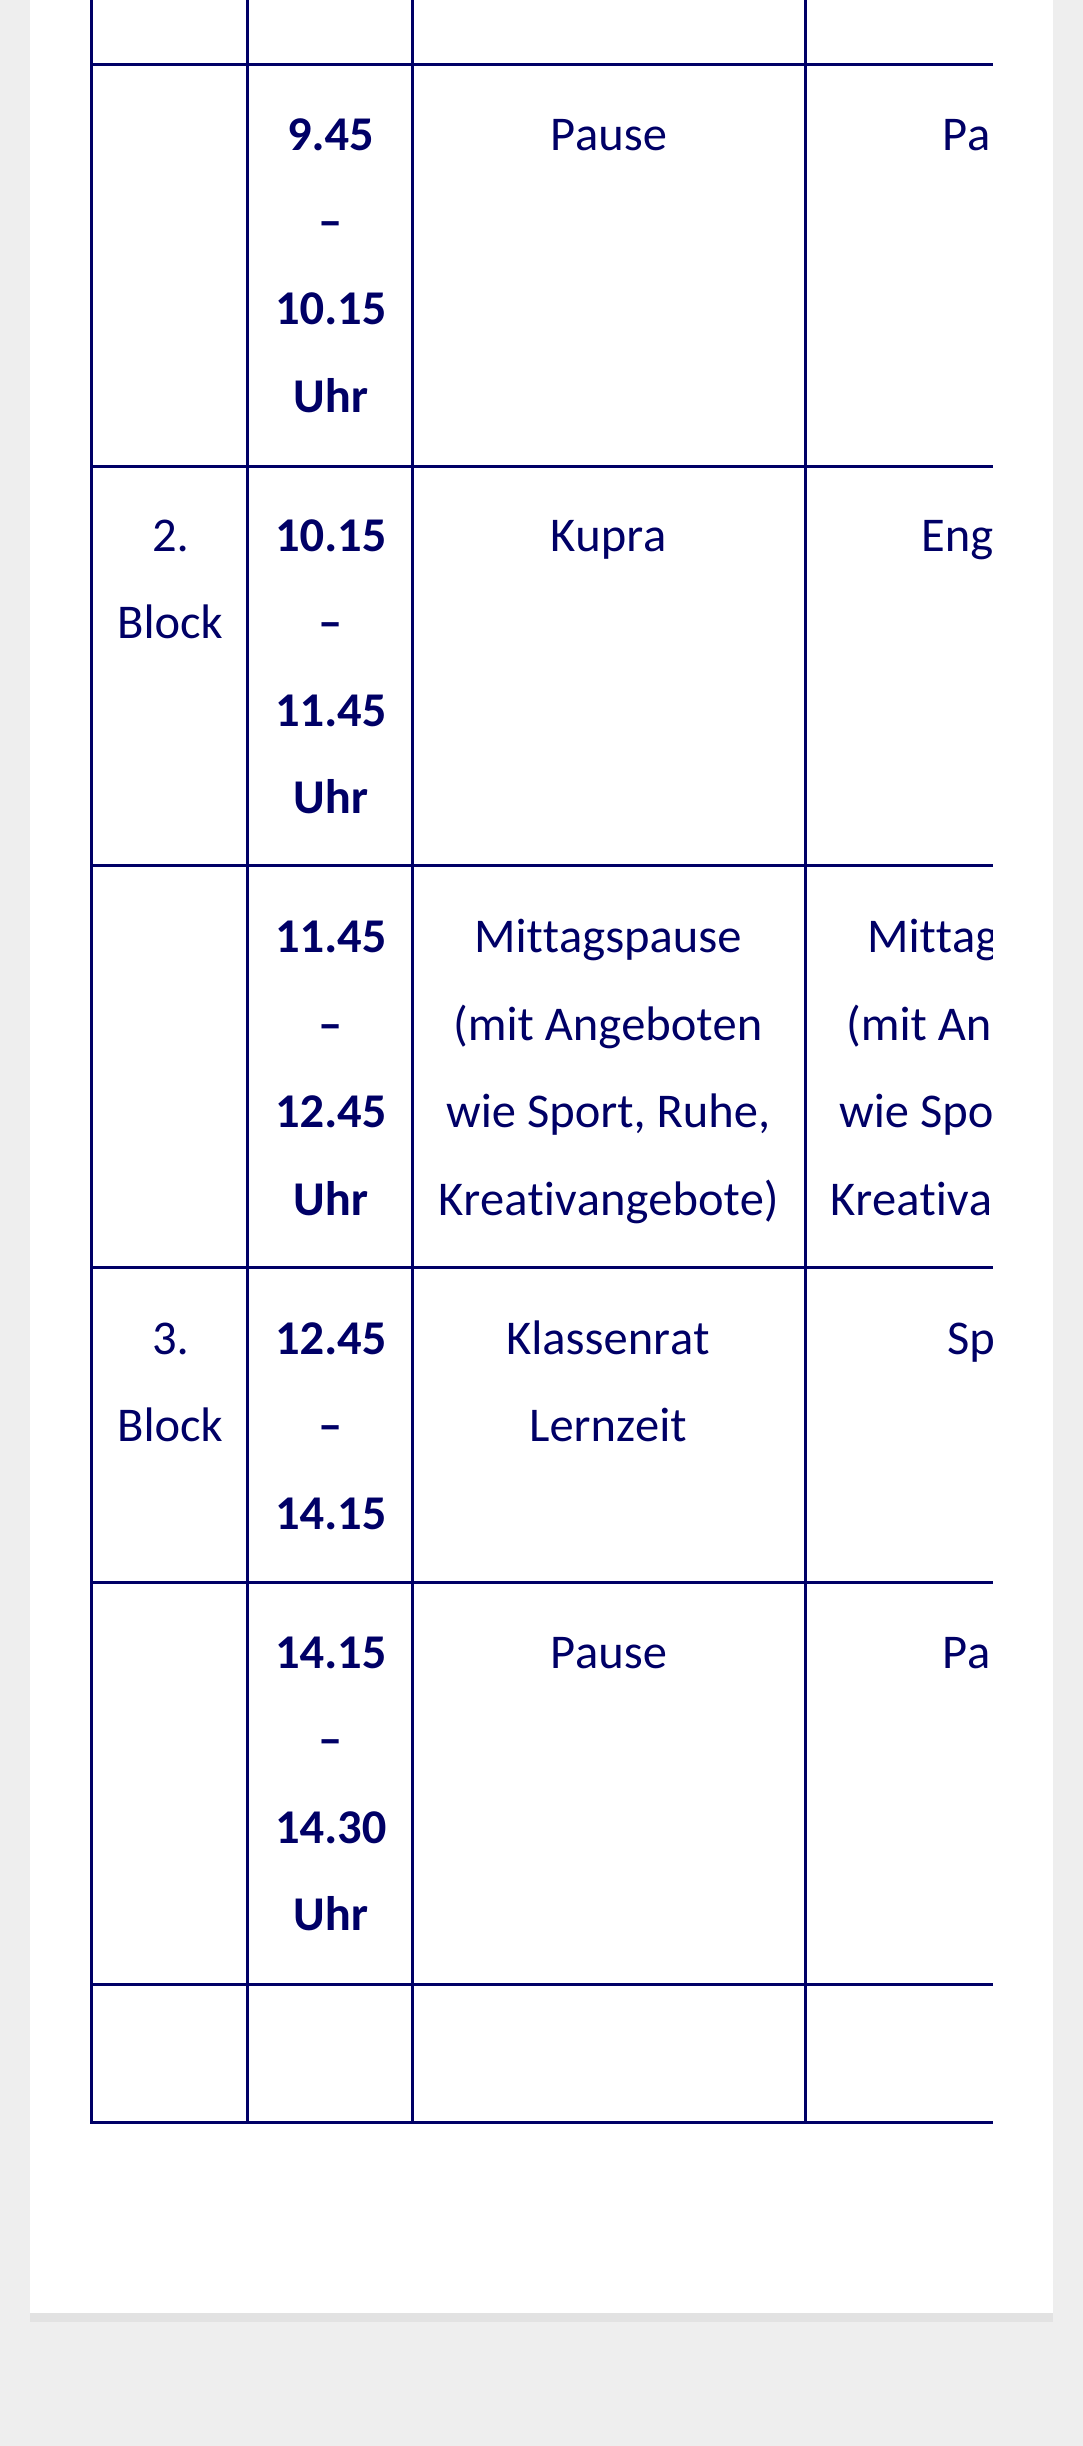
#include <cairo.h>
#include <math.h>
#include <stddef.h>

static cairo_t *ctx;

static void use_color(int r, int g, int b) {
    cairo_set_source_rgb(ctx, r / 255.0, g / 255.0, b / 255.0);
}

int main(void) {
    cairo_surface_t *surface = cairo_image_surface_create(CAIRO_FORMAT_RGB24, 1083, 2446);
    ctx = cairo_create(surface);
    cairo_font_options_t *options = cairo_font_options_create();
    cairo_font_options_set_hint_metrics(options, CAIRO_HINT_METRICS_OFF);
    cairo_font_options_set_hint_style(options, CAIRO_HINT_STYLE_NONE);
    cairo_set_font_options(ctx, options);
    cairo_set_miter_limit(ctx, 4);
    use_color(238, 238, 238);
    cairo_paint(ctx);
    use_color(255, 255, 255);
    cairo_rectangle(ctx, 30, 0, 1023, 2313);
    cairo_fill(ctx);
    use_color(226, 226, 226);
    cairo_rectangle(ctx, 30, 2313, 1023, 9);
    cairo_fill(ctx);
    use_color(0, 0, 102);
    cairo_rectangle(ctx, 804, 63, 189, 3);
    cairo_fill(ctx);
    cairo_rectangle(ctx, 804, 465, 189, 3);
    cairo_fill(ctx);
    cairo_rectangle(ctx, 804, 864, 189, 3);
    cairo_fill(ctx);
    cairo_rectangle(ctx, 804, 1266, 189, 3);
    cairo_fill(ctx);
    cairo_rectangle(ctx, 804, 1581, 189, 3);
    cairo_fill(ctx);
    cairo_rectangle(ctx, 804, 1983, 189, 3);
    cairo_fill(ctx);
    cairo_rectangle(ctx, 804, 2121, 189, 3);
    cairo_fill(ctx);
    cairo_rectangle(ctx, 804, 1983, 3, 141);
    cairo_fill(ctx);
    cairo_rectangle(ctx, 411, 1983, 396, 3);
    cairo_fill(ctx);
    cairo_rectangle(ctx, 804, 1581, 3, 405);
    cairo_fill(ctx);
    cairo_rectangle(ctx, 411, 1581, 396, 3);
    cairo_fill(ctx);
    cairo_rectangle(ctx, 804, 1266, 3, 318);
    cairo_fill(ctx);
    cairo_rectangle(ctx, 411, 1266, 396, 3);
    cairo_fill(ctx);
    cairo_rectangle(ctx, 804, 864, 3, 405);
    cairo_fill(ctx);
    cairo_rectangle(ctx, 411, 864, 396, 3);
    cairo_fill(ctx);
    cairo_rectangle(ctx, 804, 465, 3, 402);
    cairo_fill(ctx);
    cairo_rectangle(ctx, 411, 465, 396, 3);
    cairo_fill(ctx);
    cairo_rectangle(ctx, 804, 63, 3, 405);
    cairo_fill(ctx);
    cairo_rectangle(ctx, 411, 63, 396, 3);
    cairo_fill(ctx);
    cairo_rectangle(ctx, 411, 2121, 396, 3);
    cairo_fill(ctx);
    cairo_rectangle(ctx, 411, 1983, 3, 141);
    cairo_fill(ctx);
    cairo_rectangle(ctx, 246, 1983, 168, 3);
    cairo_fill(ctx);
    cairo_rectangle(ctx, 411, 1581, 3, 405);
    cairo_fill(ctx);
    cairo_rectangle(ctx, 246, 1581, 168, 3);
    cairo_fill(ctx);
    cairo_rectangle(ctx, 411, 1266, 3, 318);
    cairo_fill(ctx);
    cairo_rectangle(ctx, 246, 1266, 168, 3);
    cairo_fill(ctx);
    cairo_rectangle(ctx, 411, 864, 3, 405);
    cairo_fill(ctx);
    cairo_rectangle(ctx, 246, 864, 168, 3);
    cairo_fill(ctx);
    cairo_rectangle(ctx, 411, 465, 3, 402);
    cairo_fill(ctx);
    cairo_rectangle(ctx, 246, 465, 168, 3);
    cairo_fill(ctx);
    cairo_rectangle(ctx, 411, 63, 3, 405);
    cairo_fill(ctx);
    cairo_rectangle(ctx, 246, 63, 168, 3);
    cairo_fill(ctx);
    cairo_rectangle(ctx, 246, 2121, 168, 3);
    cairo_fill(ctx);
    cairo_rectangle(ctx, 246, 1983, 3, 141);
    cairo_fill(ctx);
    cairo_rectangle(ctx, 90, 1983, 159, 3);
    cairo_fill(ctx);
    cairo_rectangle(ctx, 246, 1581, 3, 405);
    cairo_fill(ctx);
    cairo_rectangle(ctx, 90, 1581, 159, 3);
    cairo_fill(ctx);
    cairo_rectangle(ctx, 246, 1266, 3, 318);
    cairo_fill(ctx);
    cairo_rectangle(ctx, 90, 1266, 159, 3);
    cairo_fill(ctx);
    cairo_rectangle(ctx, 246, 864, 3, 405);
    cairo_fill(ctx);
    cairo_rectangle(ctx, 90, 864, 159, 3);
    cairo_fill(ctx);
    cairo_rectangle(ctx, 246, 465, 3, 402);
    cairo_fill(ctx);
    cairo_rectangle(ctx, 90, 465, 159, 3);
    cairo_fill(ctx);
    cairo_rectangle(ctx, 246, 63, 3, 405);
    cairo_fill(ctx);
    cairo_rectangle(ctx, 90, 63, 159, 3);
    cairo_fill(ctx);
    cairo_rectangle(ctx, 246, 0, 3, 66);
    cairo_fill(ctx);
    cairo_rectangle(ctx, 411, 0, 3, 66);
    cairo_fill(ctx);
    cairo_rectangle(ctx, 804, 0, 3, 66);
    cairo_fill(ctx);
    cairo_rectangle(ctx, 90, 2121, 159, 3);
    cairo_fill(ctx);
    cairo_rectangle(ctx, 90, 1983, 3, 141);
    cairo_fill(ctx);
    cairo_rectangle(ctx, 90, 1581, 3, 405);
    cairo_fill(ctx);
    cairo_rectangle(ctx, 90, 1266, 3, 318);
    cairo_fill(ctx);
    cairo_rectangle(ctx, 90, 864, 3, 405);
    cairo_fill(ctx);
    cairo_rectangle(ctx, 90, 465, 3, 402);
    cairo_fill(ctx);
    cairo_rectangle(ctx, 90, 0, 3, 468);
    cairo_fill(ctx);
    cairo_select_font_face(ctx, "Carlito", CAIRO_FONT_SLANT_NORMAL, CAIRO_FONT_WEIGHT_BOLD);
    cairo_set_font_size(ctx, 48.5);
    cairo_move_to(ctx, 287, 150);
    cairo_show_text(ctx, "9.45");
    cairo_move_to(ctx, 318, 237);
    cairo_show_text(ctx, "–");
    cairo_move_to(ctx, 275, 324);
    cairo_show_text(ctx, "10.15");
    cairo_move_to(ctx, 293, 412);
    cairo_show_text(ctx, "Uhr");
    cairo_select_font_face(ctx, "Carlito", CAIRO_FONT_SLANT_NORMAL, CAIRO_FONT_WEIGHT_NORMAL);
    cairo_move_to(ctx, 550, 150);
    cairo_show_text(ctx, "Pause");
    cairo_move_to(ctx, 942, 150);
    cairo_show_text(ctx, "Pa");
    cairo_move_to(ctx, 152, 551);
    cairo_show_text(ctx, "2.");
    cairo_move_to(ctx, 117, 638);
    cairo_show_text(ctx, "Block");
    cairo_select_font_face(ctx, "Carlito", CAIRO_FONT_SLANT_NORMAL, CAIRO_FONT_WEIGHT_BOLD);
    cairo_move_to(ctx, 275, 551);
    cairo_show_text(ctx, "10.15");
    cairo_move_to(ctx, 318, 638);
    cairo_show_text(ctx, "–");
    cairo_move_to(ctx, 275, 726);
    cairo_show_text(ctx, "11.45");
    cairo_move_to(ctx, 293, 813);
    cairo_show_text(ctx, "Uhr");
    cairo_select_font_face(ctx, "Carlito", CAIRO_FONT_SLANT_NORMAL, CAIRO_FONT_WEIGHT_NORMAL);
    cairo_move_to(ctx, 550, 551);
    cairo_show_text(ctx, "Kupra");
    cairo_move_to(ctx, 921, 551);
    cairo_show_text(ctx, "Eng");
    cairo_select_font_face(ctx, "Carlito", CAIRO_FONT_SLANT_NORMAL, CAIRO_FONT_WEIGHT_BOLD);
    cairo_move_to(ctx, 275, 952);
    cairo_show_text(ctx, "11.45");
    cairo_move_to(ctx, 318, 1040);
    cairo_show_text(ctx, "–");
    cairo_move_to(ctx, 275, 1127);
    cairo_show_text(ctx, "12.45");
    cairo_move_to(ctx, 293, 1215);
    cairo_show_text(ctx, "Uhr");
    cairo_select_font_face(ctx, "Carlito", CAIRO_FONT_SLANT_NORMAL, CAIRO_FONT_WEIGHT_NORMAL);
    cairo_move_to(ctx, 474, 952);
    cairo_show_text(ctx, "Mittagspause");
    cairo_move_to(ctx, 453, 1040);
    cairo_show_text(ctx, "(mit Angeboten");
    cairo_move_to(ctx, 446, 1127);
    cairo_show_text(ctx, "wie Sport, Ruhe,");
    cairo_move_to(ctx, 438, 1215);
    cairo_show_text(ctx, "Kreativangebote)");
    cairo_save(ctx);
    cairo_rectangle(ctx, 90, 0, 903, 2199);
    cairo_clip(ctx);
    cairo_move_to(ctx, 867, 952);
    cairo_show_text(ctx, "Mittag");
    cairo_restore(ctx);
    cairo_move_to(ctx, 846, 1040);
    cairo_show_text(ctx, "(mit An");
    cairo_move_to(ctx, 839, 1127);
    cairo_show_text(ctx, "wie Spo");
    cairo_move_to(ctx, 830, 1215);
    cairo_show_text(ctx, "Kreativa");
    cairo_move_to(ctx, 152, 1354);
    cairo_show_text(ctx, "3.");
    cairo_move_to(ctx, 117, 1441);
    cairo_show_text(ctx, "Block");
    cairo_select_font_face(ctx, "Carlito", CAIRO_FONT_SLANT_NORMAL, CAIRO_FONT_WEIGHT_BOLD);
    cairo_move_to(ctx, 275, 1354);
    cairo_show_text(ctx, "12.45");
    cairo_move_to(ctx, 318, 1441);
    cairo_show_text(ctx, "–");
    cairo_move_to(ctx, 275, 1529);
    cairo_show_text(ctx, "14.15");
    cairo_select_font_face(ctx, "Carlito", CAIRO_FONT_SLANT_NORMAL, CAIRO_FONT_WEIGHT_NORMAL);
    cairo_move_to(ctx, 506, 1354);
    cairo_show_text(ctx, "Klassenrat");
    cairo_move_to(ctx, 529, 1441);
    cairo_show_text(ctx, "Lernzeit");
    cairo_save(ctx);
    cairo_rectangle(ctx, 90, 0, 903, 2199);
    cairo_clip(ctx);
    cairo_move_to(ctx, 947, 1354);
    cairo_show_text(ctx, "Sp");
    cairo_restore(ctx);
    cairo_select_font_face(ctx, "Carlito", CAIRO_FONT_SLANT_NORMAL, CAIRO_FONT_WEIGHT_BOLD);
    cairo_move_to(ctx, 275, 1668);
    cairo_show_text(ctx, "14.15");
    cairo_move_to(ctx, 318, 1755);
    cairo_show_text(ctx, "–");
    cairo_move_to(ctx, 275, 1843);
    cairo_show_text(ctx, "14.30");
    cairo_move_to(ctx, 293, 1930);
    cairo_show_text(ctx, "Uhr");
    cairo_select_font_face(ctx, "Carlito", CAIRO_FONT_SLANT_NORMAL, CAIRO_FONT_WEIGHT_NORMAL);
    cairo_move_to(ctx, 550, 1668);
    cairo_show_text(ctx, "Pause");
    cairo_move_to(ctx, 942, 1668);
    cairo_show_text(ctx, "Pa");
    cairo_surface_write_to_png(surface, "result.png");
    cairo_font_options_destroy(options);
    cairo_destroy(ctx);
    cairo_surface_destroy(surface);
    return 0;
}
